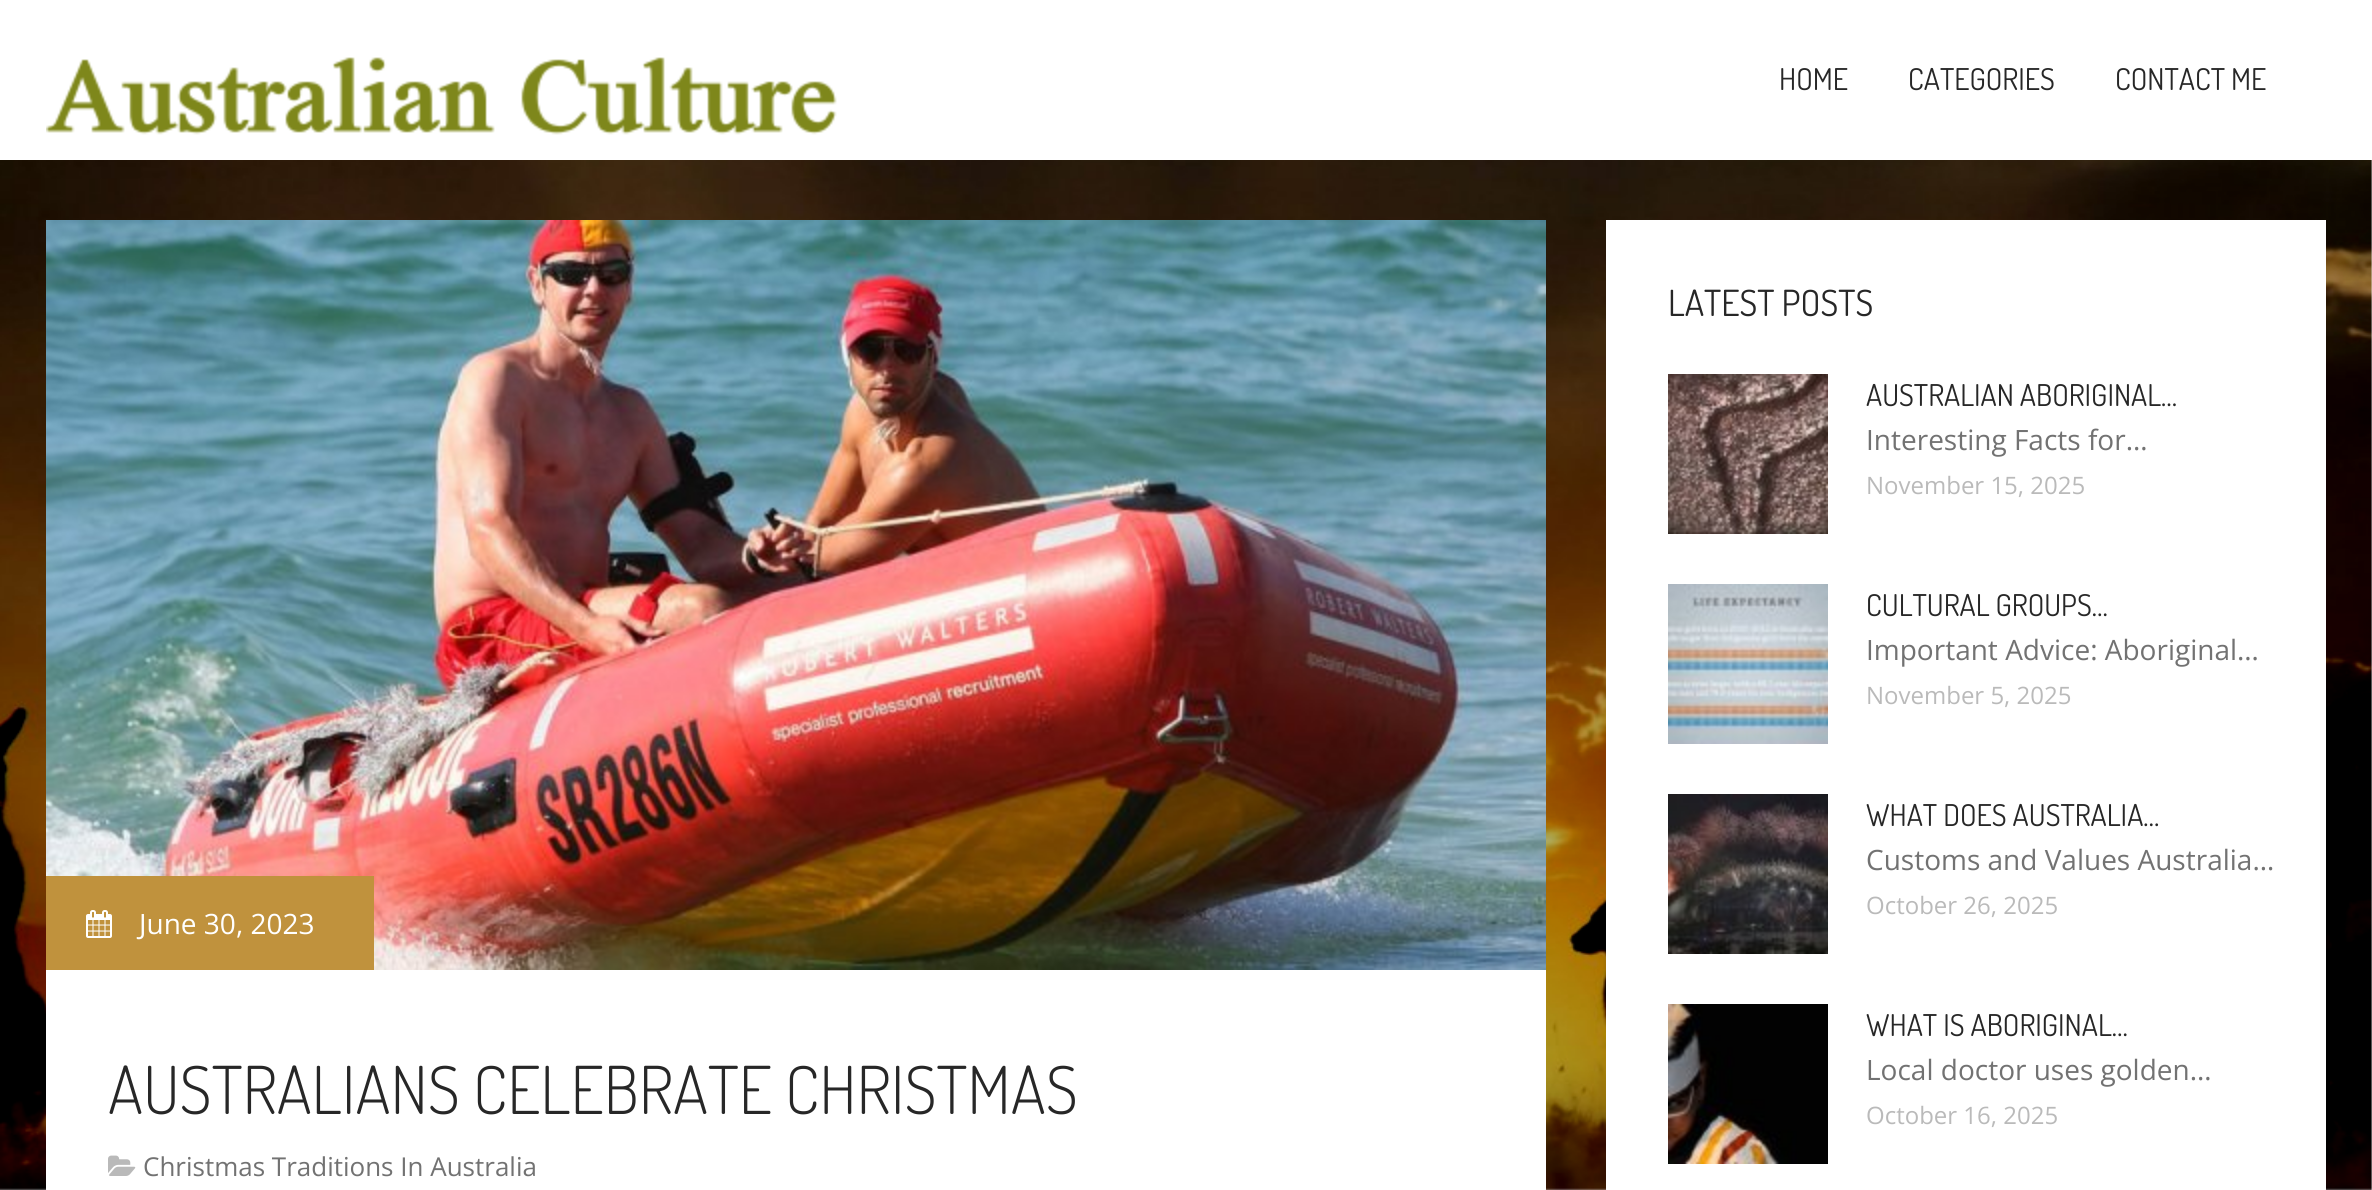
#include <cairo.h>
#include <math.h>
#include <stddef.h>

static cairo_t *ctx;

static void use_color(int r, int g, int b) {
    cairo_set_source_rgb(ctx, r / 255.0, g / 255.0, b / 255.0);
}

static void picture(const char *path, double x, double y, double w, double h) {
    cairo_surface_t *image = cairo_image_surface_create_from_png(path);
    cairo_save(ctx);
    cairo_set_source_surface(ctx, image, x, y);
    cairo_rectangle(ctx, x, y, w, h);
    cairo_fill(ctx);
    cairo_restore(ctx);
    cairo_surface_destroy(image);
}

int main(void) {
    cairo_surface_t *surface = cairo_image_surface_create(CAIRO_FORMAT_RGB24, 2372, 1190);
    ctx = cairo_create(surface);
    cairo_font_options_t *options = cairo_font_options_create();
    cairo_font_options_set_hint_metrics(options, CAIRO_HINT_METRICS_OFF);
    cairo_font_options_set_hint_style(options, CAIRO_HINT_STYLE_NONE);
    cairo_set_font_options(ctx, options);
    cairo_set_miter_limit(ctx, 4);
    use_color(255, 255, 255);
    cairo_paint(ctx);
    picture("img1.png", 46, 57, 791, 78);
    cairo_select_font_face(ctx, "Dosis", CAIRO_FONT_SLANT_NORMAL, CAIRO_FONT_WEIGHT_NORMAL);
    cairo_set_font_size(ctx, 30);
    use_color(39, 39, 39);
    cairo_move_to(ctx, 1779, 90);
    cairo_show_text(ctx, "HOME");
    cairo_move_to(ctx, 1908, 90);
    cairo_show_text(ctx, "CATEGORIES");
    cairo_move_to(ctx, 2115, 90);
    cairo_show_text(ctx, "CONTACT ME");
    picture("img2.png", 0, 160, 2372, 1030);
    use_color(255, 255, 255);
    cairo_rectangle(ctx, 46, 970, 1500, 220);
    cairo_fill(ctx);
    picture("img3.png", 46, 220, 1500, 750);
    use_color(192, 146, 61);
    cairo_rectangle(ctx, 46, 876, 328, 94);
    cairo_fill(ctx);
    picture("img4.png", 86, 910, 26, 28);
    cairo_select_font_face(ctx, "Open Sans", CAIRO_FONT_SLANT_NORMAL, CAIRO_FONT_WEIGHT_NORMAL);
    cairo_set_font_size(ctx, 28);
    use_color(255, 255, 255);
    cairo_move_to(ctx, 139, 934);
    cairo_show_text(ctx, "June 30, 2023");
    cairo_select_font_face(ctx, "Dosis Light", CAIRO_FONT_SLANT_NORMAL, CAIRO_FONT_WEIGHT_NORMAL);
    cairo_set_font_size(ctx, 66);
    use_color(39, 39, 39);
    cairo_move_to(ctx, 108, 1114);
    cairo_show_text(ctx, "AUSTRALIANS CELEBRATE CHRISTMAS");
    picture("img5.png", 108, 1155, 28, 21);
    cairo_select_font_face(ctx, "Open Sans", CAIRO_FONT_SLANT_NORMAL, CAIRO_FONT_WEIGHT_NORMAL);
    cairo_set_font_size(ctx, 26);
    use_color(114, 114, 114);
    cairo_move_to(ctx, 143, 1176);
    cairo_show_text(ctx, "Christmas Traditions In Australia");
    use_color(255, 255, 255);
    cairo_rectangle(ctx, 1606, 220, 720, 970);
    cairo_fill(ctx);
    cairo_select_font_face(ctx, "Dosis", CAIRO_FONT_SLANT_NORMAL, CAIRO_FONT_WEIGHT_NORMAL);
    cairo_set_font_size(ctx, 36);
    use_color(39, 39, 39);
    cairo_move_to(ctx, 1668, 316);
    cairo_show_text(ctx, "LATEST POSTS");
    picture("img6.png", 1668, 374, 160, 160);
    cairo_set_font_size(ctx, 30);
    cairo_move_to(ctx, 1866, 406);
    cairo_show_text(ctx, "AUSTRALIAN ABORIGINAL…");
    cairo_select_font_face(ctx, "Open Sans", CAIRO_FONT_SLANT_NORMAL, CAIRO_FONT_WEIGHT_NORMAL);
    cairo_set_font_size(ctx, 28);
    use_color(114, 114, 114);
    cairo_move_to(ctx, 1866, 450);
    cairo_show_text(ctx, "Interesting Facts for…");
    cairo_set_font_size(ctx, 24);
    use_color(186, 186, 186);
    cairo_move_to(ctx, 1866, 494);
    cairo_show_text(ctx, "November 15, 2025");
    picture("img7.png", 1668, 584, 160, 160);
    cairo_select_font_face(ctx, "Dosis", CAIRO_FONT_SLANT_NORMAL, CAIRO_FONT_WEIGHT_NORMAL);
    cairo_set_font_size(ctx, 30);
    use_color(39, 39, 39);
    cairo_move_to(ctx, 1866, 616);
    cairo_show_text(ctx, "CULTURAL GROUPS…");
    cairo_select_font_face(ctx, "Open Sans", CAIRO_FONT_SLANT_NORMAL, CAIRO_FONT_WEIGHT_NORMAL);
    cairo_set_font_size(ctx, 28);
    use_color(114, 114, 114);
    cairo_move_to(ctx, 1866, 660);
    cairo_show_text(ctx, "Important Advice: Aboriginal…");
    cairo_set_font_size(ctx, 24);
    use_color(186, 186, 186);
    cairo_move_to(ctx, 1866, 704);
    cairo_show_text(ctx, "November 5, 2025");
    picture("img8.png", 1668, 794, 160, 160);
    cairo_select_font_face(ctx, "Dosis", CAIRO_FONT_SLANT_NORMAL, CAIRO_FONT_WEIGHT_NORMAL);
    cairo_set_font_size(ctx, 30);
    use_color(39, 39, 39);
    cairo_move_to(ctx, 1866, 826);
    cairo_show_text(ctx, "WHAT DOES AUSTRALIA…");
    cairo_select_font_face(ctx, "Open Sans", CAIRO_FONT_SLANT_NORMAL, CAIRO_FONT_WEIGHT_NORMAL);
    cairo_set_font_size(ctx, 28);
    use_color(114, 114, 114);
    cairo_move_to(ctx, 1866, 870);
    cairo_show_text(ctx, "Customs and Values Australia…");
    cairo_set_font_size(ctx, 24);
    use_color(186, 186, 186);
    cairo_move_to(ctx, 1866, 914);
    cairo_show_text(ctx, "October 26, 2025");
    picture("img9.png", 1668, 1004, 160, 160);
    cairo_select_font_face(ctx, "Dosis", CAIRO_FONT_SLANT_NORMAL, CAIRO_FONT_WEIGHT_NORMAL);
    cairo_set_font_size(ctx, 30);
    use_color(39, 39, 39);
    cairo_move_to(ctx, 1866, 1036);
    cairo_show_text(ctx, "WHAT IS ABORIGINAL…");
    cairo_select_font_face(ctx, "Open Sans", CAIRO_FONT_SLANT_NORMAL, CAIRO_FONT_WEIGHT_NORMAL);
    cairo_set_font_size(ctx, 28);
    use_color(114, 114, 114);
    cairo_move_to(ctx, 1866, 1080);
    cairo_show_text(ctx, "Local doctor uses golden…");
    cairo_set_font_size(ctx, 24);
    use_color(186, 186, 186);
    cairo_move_to(ctx, 1866, 1124);
    cairo_show_text(ctx, "October 16, 2025");
    cairo_surface_write_to_png(surface, "result.png");
    cairo_font_options_destroy(options);
    cairo_destroy(ctx);
    cairo_surface_destroy(surface);
    return 0;
}
